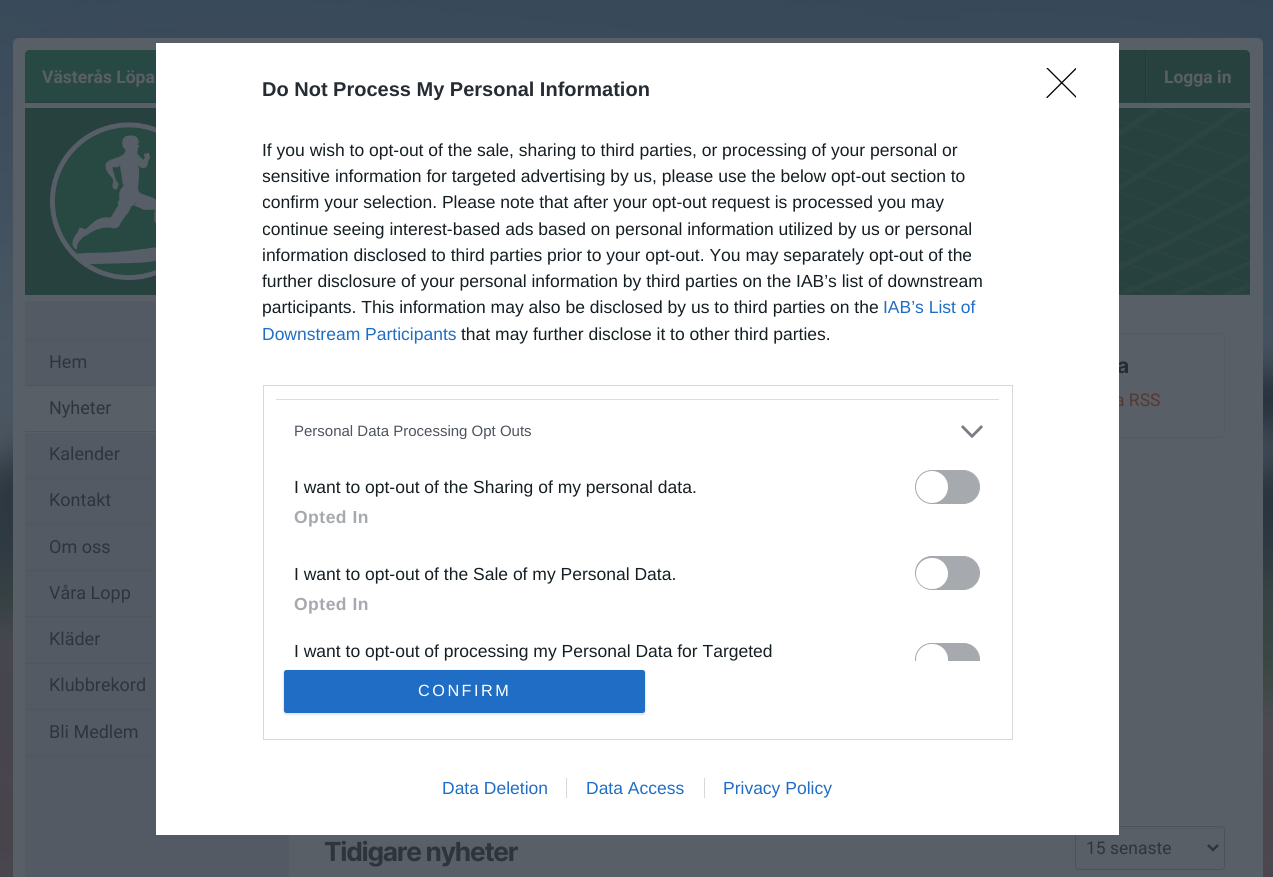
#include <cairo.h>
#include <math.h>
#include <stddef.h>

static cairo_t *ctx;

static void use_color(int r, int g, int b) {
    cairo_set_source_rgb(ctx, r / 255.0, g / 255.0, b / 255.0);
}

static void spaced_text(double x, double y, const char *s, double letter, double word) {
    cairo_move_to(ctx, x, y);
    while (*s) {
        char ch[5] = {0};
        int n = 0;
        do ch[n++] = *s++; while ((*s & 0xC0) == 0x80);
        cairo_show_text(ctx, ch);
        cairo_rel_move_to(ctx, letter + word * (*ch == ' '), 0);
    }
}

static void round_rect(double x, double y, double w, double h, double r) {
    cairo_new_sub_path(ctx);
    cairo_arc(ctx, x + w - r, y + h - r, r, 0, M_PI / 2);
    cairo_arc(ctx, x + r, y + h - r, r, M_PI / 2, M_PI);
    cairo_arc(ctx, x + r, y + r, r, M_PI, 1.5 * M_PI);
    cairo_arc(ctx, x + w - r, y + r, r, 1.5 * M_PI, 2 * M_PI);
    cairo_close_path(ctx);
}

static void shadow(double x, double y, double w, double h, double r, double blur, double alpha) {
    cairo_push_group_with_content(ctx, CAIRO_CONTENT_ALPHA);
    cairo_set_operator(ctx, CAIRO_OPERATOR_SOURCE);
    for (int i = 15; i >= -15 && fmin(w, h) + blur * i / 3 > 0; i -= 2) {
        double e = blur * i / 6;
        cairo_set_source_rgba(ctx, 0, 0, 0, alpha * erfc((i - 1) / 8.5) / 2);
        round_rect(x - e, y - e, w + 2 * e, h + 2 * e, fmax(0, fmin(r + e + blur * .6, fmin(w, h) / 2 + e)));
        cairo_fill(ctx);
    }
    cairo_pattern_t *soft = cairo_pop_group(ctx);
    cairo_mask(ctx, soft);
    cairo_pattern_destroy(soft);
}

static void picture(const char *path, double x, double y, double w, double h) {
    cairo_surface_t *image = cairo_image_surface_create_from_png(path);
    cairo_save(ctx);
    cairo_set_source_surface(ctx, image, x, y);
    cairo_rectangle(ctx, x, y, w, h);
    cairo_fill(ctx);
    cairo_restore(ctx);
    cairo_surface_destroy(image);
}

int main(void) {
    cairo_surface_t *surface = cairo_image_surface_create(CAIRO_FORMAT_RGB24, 1273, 877);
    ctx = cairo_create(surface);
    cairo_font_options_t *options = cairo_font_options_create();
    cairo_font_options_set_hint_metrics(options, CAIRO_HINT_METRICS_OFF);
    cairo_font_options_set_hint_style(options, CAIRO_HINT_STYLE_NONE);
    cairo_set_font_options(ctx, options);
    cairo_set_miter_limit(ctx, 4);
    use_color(255, 255, 255);
    cairo_paint(ctx);
    picture("img1.png", 0, 0, 1273, 877);
    use_color(89, 95, 103);
    cairo_new_path(ctx);
    cairo_move_to(ctx, 19, 38);
    cairo_line_to(ctx, 1257, 38);
    cairo_curve_to(ctx, 1260.5, 38, 1263, 40.5, 1263, 44);
    cairo_line_to(ctx, 1263, 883);
    cairo_line_to(ctx, 13, 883);
    cairo_line_to(ctx, 13, 44);
    cairo_curve_to(ctx, 13, 40.5, 15.5, 38, 19, 38);
    cairo_close_path(ctx);
    cairo_fill(ctx);
    use_color(39, 65, 62);
    cairo_new_path(ctx);
    cairo_move_to(ctx, 30, 50);
    cairo_line_to(ctx, 1245, 50);
    cairo_curve_to(ctx, 1248, 50, 1250, 52, 1250, 55);
    cairo_line_to(ctx, 1250, 103);
    cairo_line_to(ctx, 25, 103);
    cairo_line_to(ctx, 25, 55);
    cairo_curve_to(ctx, 25, 52, 27, 50, 30, 50);
    cairo_close_path(ctx);
    cairo_fill(ctx);
    use_color(40, 73, 67);
    cairo_new_path(ctx);
    cairo_move_to(ctx, 30, 50);
    cairo_line_to(ctx, 223, 50);
    cairo_line_to(ctx, 223, 103);
    cairo_line_to(ctx, 25, 103);
    cairo_line_to(ctx, 25, 55);
    cairo_curve_to(ctx, 25, 52, 27, 50, 30, 50);
    cairo_close_path(ctx);
    cairo_fill(ctx);
    use_color(37, 64, 61);
    cairo_new_path(ctx);
    cairo_move_to(ctx, 25, 102);
    cairo_line_to(ctx, 25, 103);
    cairo_line_to(ctx, 223, 103);
    cairo_line_to(ctx, 223, 50);
    cairo_line_to(ctx, 221, 50);
    cairo_line_to(ctx, 221, 102);
    cairo_close_path(ctx);
    cairo_fill(ctx);
    cairo_select_font_face(ctx, "Roboto", CAIRO_FONT_SLANT_NORMAL, CAIRO_FONT_WEIGHT_BOLD);
    cairo_set_font_size(ctx, 17.5);
    use_color(89, 95, 103);
    cairo_move_to(ctx, 42, 83);
    cairo_show_text(ctx, "Västerås Löpa");
    use_color(36, 58, 58);
    cairo_rectangle(ctx, 1145, 50, 1, 53);
    cairo_fill(ctx);
    use_color(44, 68, 66);
    cairo_rectangle(ctx, 1146, 50, 1, 53);
    cairo_fill(ctx);
    use_color(89, 95, 103);
    cairo_move_to(ctx, 1164, 83);
    cairo_show_text(ctx, "Logga in");
    use_color(39, 65, 62);
    cairo_rectangle(ctx, 25, 108, 1225, 187);
    cairo_fill(ctx);
    picture("img2.png", 50, 108, 1200, 187);
    use_color(84, 90, 99);
    cairo_rectangle(ctx, 25, 301, 264, 576);
    cairo_fill(ctx);
    use_color(80, 86, 94);
    cairo_rectangle(ctx, 25, 339, 131, 1);
    cairo_fill(ctx);
    cairo_rectangle(ctx, 25, 385, 131, 1);
    cairo_fill(ctx);
    cairo_select_font_face(ctx, "Roboto", CAIRO_FONT_SLANT_NORMAL, CAIRO_FONT_WEIGHT_NORMAL);
    cairo_set_font_size(ctx, 18);
    use_color(46, 52, 60);
    cairo_move_to(ctx, 49, 368);
    cairo_show_text(ctx, "Hem");
    use_color(89, 95, 103);
    cairo_rectangle(ctx, 25, 386, 131, 47);
    cairo_fill(ctx);
    use_color(80, 86, 94);
    cairo_rectangle(ctx, 25, 431, 131, 1);
    cairo_fill(ctx);
    use_color(46, 52, 60);
    cairo_move_to(ctx, 49, 414);
    cairo_show_text(ctx, "Nyheter");
    use_color(80, 86, 94);
    cairo_rectangle(ctx, 25, 478, 131, 1);
    cairo_fill(ctx);
    use_color(46, 52, 60);
    cairo_move_to(ctx, 49, 460);
    cairo_show_text(ctx, "Kalender");
    use_color(80, 86, 94);
    cairo_rectangle(ctx, 25, 524, 131, 1);
    cairo_fill(ctx);
    use_color(46, 52, 60);
    cairo_move_to(ctx, 49, 506);
    cairo_show_text(ctx, "Kontakt");
    use_color(80, 86, 94);
    cairo_rectangle(ctx, 25, 570, 131, 1);
    cairo_fill(ctx);
    use_color(46, 52, 60);
    cairo_move_to(ctx, 49, 553);
    cairo_show_text(ctx, "Om oss");
    use_color(80, 86, 94);
    cairo_rectangle(ctx, 25, 616, 131, 1);
    cairo_fill(ctx);
    use_color(46, 52, 60);
    cairo_move_to(ctx, 49, 599);
    cairo_show_text(ctx, "Våra Lopp");
    use_color(80, 86, 94);
    cairo_rectangle(ctx, 25, 663, 131, 1);
    cairo_fill(ctx);
    use_color(46, 52, 60);
    cairo_move_to(ctx, 49, 645);
    cairo_show_text(ctx, "Kläder");
    use_color(80, 86, 94);
    cairo_rectangle(ctx, 25, 709, 131, 1);
    cairo_fill(ctx);
    use_color(46, 52, 60);
    cairo_move_to(ctx, 49, 691);
    cairo_show_text(ctx, "Klubbrekord");
    use_color(80, 86, 94);
    cairo_rectangle(ctx, 25, 755, 131, 1);
    cairo_fill(ctx);
    use_color(46, 52, 60);
    cairo_move_to(ctx, 49, 738);
    cairo_show_text(ctx, "Bli Medlem");
    round_rect(988.5, 333.5, 236, 104, 5.5);
    use_color(84, 90, 99);
    cairo_set_line_width(ctx, 1);
    cairo_stroke(ctx);
    cairo_select_font_face(ctx, "Inter", CAIRO_FONT_SLANT_NORMAL, CAIRO_FONT_WEIGHT_BOLD);
    cairo_set_font_size(ctx, 21);
    use_color(38, 44, 52);
    spaced_text(1117, 373, "a", -1, 0);
    cairo_select_font_face(ctx, "Roboto", CAIRO_FONT_SLANT_NORMAL, CAIRO_FONT_WEIGHT_NORMAL);
    cairo_set_font_size(ctx, 17.5);
    use_color(85, 56, 48);
    cairo_move_to(ctx, 1115, 406);
    cairo_show_text(ctx, "a RSS");
    cairo_select_font_face(ctx, "Inter", CAIRO_FONT_SLANT_NORMAL, CAIRO_FONT_WEIGHT_BOLD);
    cairo_set_font_size(ctx, 26.25);
    use_color(46, 52, 60);
    spaced_text(324, 861, "Tidigare nyheter", -1.25, 0);
    use_color(84, 90, 98);
    cairo_new_path(ctx);
    cairo_move_to(ctx, 1079, 829);
    cairo_line_to(ctx, 1221, 829);
    cairo_curve_to(ctx, 1223, 829, 1224, 830, 1224, 831);
    cairo_line_to(ctx, 1223, 829);
    cairo_line_to(ctx, 1222, 828);
    cairo_line_to(ctx, 1102, 828);
    cairo_curve_to(ctx, 1101, 828, 1076, 823, 1076, 831);
    cairo_curve_to(ctx, 1076, 830, 1077, 829, 1079, 829);
    cairo_close_path(ctx);
    cairo_fill(ctx);
    round_rect(1075.5, 826.5, 149, 43, 3.5);
    use_color(76, 82, 90);
    cairo_stroke(ctx);
    cairo_new_path(ctx);
    cairo_move_to(ctx, 1208, 845);
    cairo_line_to(ctx, 1213, 850);
    cairo_line_to(ctx, 1218, 845);
    use_color(46, 52, 60);
    cairo_set_line_width(ctx, 2.5);
    cairo_stroke(ctx);
    cairo_select_font_face(ctx, "Roboto", CAIRO_FONT_SLANT_NORMAL, CAIRO_FONT_WEIGHT_NORMAL);
    cairo_set_font_size(ctx, 17.5);
    cairo_move_to(ctx, 1086, 854);
    cairo_show_text(ctx, "15 senaste");
    use_color(255, 255, 255);
    cairo_rectangle(ctx, 156, 43, 963, 792);
    cairo_fill(ctx);
    cairo_select_font_face(ctx, "Liberation Sans", CAIRO_FONT_SLANT_NORMAL, CAIRO_FONT_WEIGHT_BOLD);
    cairo_set_font_size(ctx, 20);
    use_color(38, 44, 52);
    cairo_move_to(ctx, 262, 96);
    cairo_show_text(ctx, "Do Not Process My Personal Information");
    cairo_select_font_face(ctx, "Liberation Sans", CAIRO_FONT_SLANT_NORMAL, CAIRO_FONT_WEIGHT_NORMAL);
    cairo_set_font_size(ctx, 17.5);
    use_color(20, 30, 35);
    cairo_move_to(ctx, 262, 156);
    cairo_show_text(ctx, "If you wish to opt-out of the sale, sharing to third parties, or processing of your personal or");
    cairo_save(ctx);
    cairo_rectangle(ctx, 263, 119, 750, 247);
    cairo_clip(ctx);
    cairo_move_to(ctx, 262, 182);
    cairo_show_text(ctx, "sensitive information for targeted advertising by us, please use the below opt-out section to");
    cairo_move_to(ctx, 262, 208);
    cairo_show_text(ctx, "confirm your selection. Please note that after your opt-out request is processed you may");
    cairo_move_to(ctx, 262, 235);
    cairo_show_text(ctx, "continue seeing interest-based ads based on personal information utilized by us or personal");
    cairo_restore(ctx);
    cairo_move_to(ctx, 262, 261);
    cairo_show_text(ctx, "information disclosed to third parties prior to your opt-out. You may separately opt-out of the");
    cairo_move_to(ctx, 262, 287);
    cairo_show_text(ctx, "further disclosure of your personal information by third parties on the IAB’s list of downstream");
    cairo_move_to(ctx, 262, 313);
    cairo_show_text(ctx, "participants. This information may also be disclosed by us to third parties on the");
    use_color(32, 109, 197);
    cairo_move_to(ctx, 883, 313);
    cairo_show_text(ctx, "IAB’s List of");
    cairo_move_to(ctx, 262, 340);
    cairo_show_text(ctx, "Downstream Participants");
    use_color(20, 30, 35);
    cairo_move_to(ctx, 461, 340);
    cairo_show_text(ctx, "that may further disclose it to other third parties.");
    cairo_rectangle(ctx, 263.5, 385.5, 749, 354);
    use_color(216, 216, 216);
    cairo_set_line_width(ctx, 1);
    cairo_stroke(ctx);
    use_color(221, 221, 221);
    cairo_rectangle(ctx, 276, 399, 723, 1);
    cairo_fill(ctx);
    cairo_set_font_size(ctx, 15);
    use_color(77, 84, 93);
    cairo_move_to(ctx, 294, 436);
    cairo_show_text(ctx, "Personal Data Processing Opt Outs");
    picture("img3.png", 961, 425, 22, 13);
    cairo_set_font_size(ctx, 17.5);
    use_color(20, 30, 35);
    cairo_move_to(ctx, 294, 493);
    cairo_show_text(ctx, "I want to opt-out of the Sharing of my personal data.");
    use_color(166, 169, 174);
    round_rect(915.5, 470.5, 64, 33, 16.5);
    cairo_fill_preserve(ctx);
    cairo_stroke(ctx);
    use_color(255, 255, 255);
    cairo_arc(ctx, 932, 487, 16, 0, 2 * M_PI);
    cairo_fill(ctx);
    cairo_select_font_face(ctx, "Liberation Sans", CAIRO_FONT_SLANT_NORMAL, CAIRO_FONT_WEIGHT_BOLD);
    use_color(166, 169, 174);
    spaced_text(294, 523, "Opted In", 0.5, 0);
    cairo_select_font_face(ctx, "Liberation Sans", CAIRO_FONT_SLANT_NORMAL, CAIRO_FONT_WEIGHT_NORMAL);
    use_color(20, 30, 35);
    cairo_move_to(ctx, 294, 580);
    cairo_show_text(ctx, "I want to opt-out of the Sale of my Personal Data.");
    use_color(166, 169, 174);
    round_rect(915.5, 556.5, 64, 33, 16.5);
    cairo_fill_preserve(ctx);
    cairo_stroke(ctx);
    use_color(255, 255, 255);
    round_rect(916, 558, 32, 31, 15.5);
    cairo_fill(ctx);
    cairo_select_font_face(ctx, "Liberation Sans", CAIRO_FONT_SLANT_NORMAL, CAIRO_FONT_WEIGHT_BOLD);
    use_color(166, 169, 174);
    spaced_text(294, 610, "Opted In", 0.5, 0);
    cairo_select_font_face(ctx, "Liberation Sans", CAIRO_FONT_SLANT_NORMAL, CAIRO_FONT_WEIGHT_NORMAL);
    use_color(20, 30, 35);
    cairo_move_to(ctx, 294, 657);
    cairo_show_text(ctx, "I want to opt-out of processing my Personal Data for Targeted");
    cairo_save(ctx);
    cairo_rectangle(ctx, 276, 399, 723, 262);
    cairo_clip(ctx);
    use_color(166, 169, 174);
    round_rect(915.5, 643.5, 64, 32, 16);
    cairo_fill_preserve(ctx);
    cairo_stroke(ctx);
    use_color(255, 255, 255);
    round_rect(916, 644, 32, 31, 15.5);
    cairo_fill(ctx);
    cairo_restore(ctx);
    use_color(0, 0, 0);
    shadow(283, 670, 363, 45, 4, 0.5, 0.1);
    use_color(32, 109, 197);
    round_rect(284, 670, 361, 43, 2.5);
    cairo_fill(ctx);
    cairo_set_font_size(ctx, 16.25);
    use_color(255, 255, 255);
    spaced_text(418, 696, "CONFIRM", 2.5, 0);
    cairo_save(ctx);
    cairo_rectangle(ctx, 1046, 68, 30, 30);
    cairo_clip(ctx);
    cairo_new_path(ctx);
    cairo_move_to(ctx, 1047, 68);
    cairo_line_to(ctx, 1076.5, 97.5);
    cairo_move_to(ctx, 1076.5, 68);
    cairo_line_to(ctx, 1047, 97.5);
    use_color(0, 0, 0);
    cairo_set_line_width(ctx, 1.3);
    cairo_set_line_cap(ctx, CAIRO_LINE_CAP_ROUND);
    cairo_set_line_join(ctx, CAIRO_LINE_JOIN_ROUND);
    cairo_stroke(ctx);
    cairo_restore(ctx);
    cairo_set_font_size(ctx, 17.5);
    use_color(32, 109, 197);
    cairo_move_to(ctx, 442, 794);
    cairo_show_text(ctx, "Data Deletion");
    cairo_move_to(ctx, 586, 794);
    cairo_show_text(ctx, "Data Access");
    use_color(216, 216, 216);
    cairo_rectangle(ctx, 566, 778, 1, 20);
    cairo_fill(ctx);
    use_color(32, 109, 197);
    cairo_move_to(ctx, 723, 794);
    cairo_show_text(ctx, "Privacy Policy");
    use_color(216, 216, 216);
    cairo_rectangle(ctx, 704, 778, 1, 20);
    cairo_fill(ctx);
    cairo_surface_write_to_png(surface, "result.png");
    cairo_font_options_destroy(options);
    cairo_destroy(ctx);
    cairo_surface_destroy(surface);
    return 0;
}
